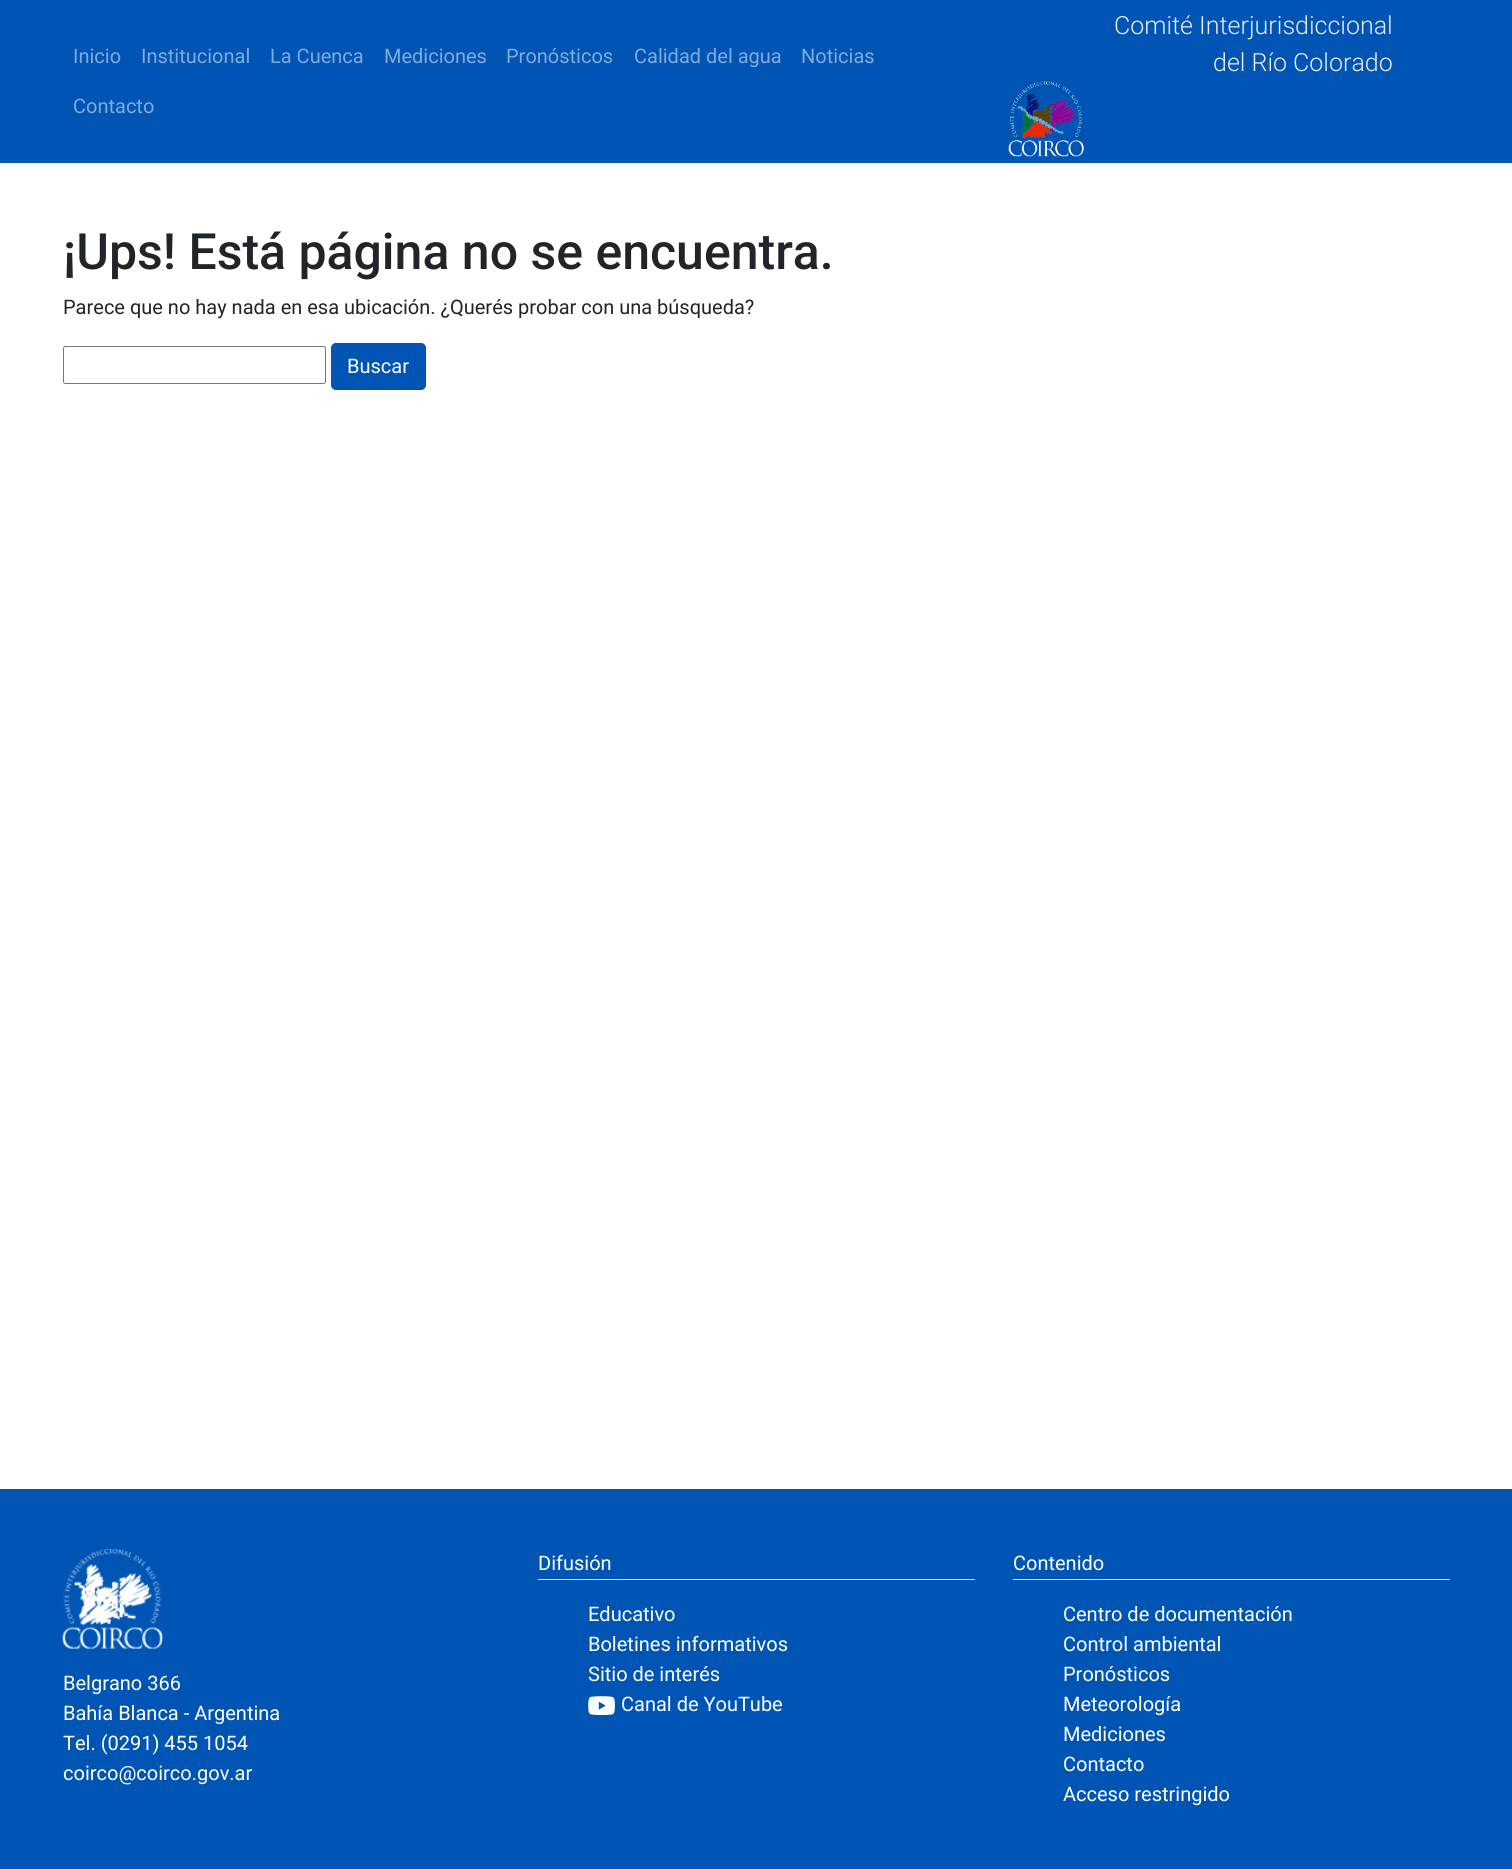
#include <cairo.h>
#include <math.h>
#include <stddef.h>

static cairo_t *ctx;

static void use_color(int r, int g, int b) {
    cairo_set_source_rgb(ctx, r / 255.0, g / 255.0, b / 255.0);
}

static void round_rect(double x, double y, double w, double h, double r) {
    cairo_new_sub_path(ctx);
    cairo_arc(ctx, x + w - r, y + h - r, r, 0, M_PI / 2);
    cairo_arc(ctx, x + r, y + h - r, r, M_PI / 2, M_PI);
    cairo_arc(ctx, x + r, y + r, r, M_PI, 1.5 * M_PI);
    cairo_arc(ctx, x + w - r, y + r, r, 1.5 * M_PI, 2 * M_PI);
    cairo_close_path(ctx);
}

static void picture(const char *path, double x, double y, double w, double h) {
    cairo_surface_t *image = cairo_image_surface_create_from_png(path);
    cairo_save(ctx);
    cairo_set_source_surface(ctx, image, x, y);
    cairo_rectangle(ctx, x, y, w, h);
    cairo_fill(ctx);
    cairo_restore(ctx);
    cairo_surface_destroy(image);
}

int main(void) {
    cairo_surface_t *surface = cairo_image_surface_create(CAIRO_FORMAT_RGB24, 1512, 1869);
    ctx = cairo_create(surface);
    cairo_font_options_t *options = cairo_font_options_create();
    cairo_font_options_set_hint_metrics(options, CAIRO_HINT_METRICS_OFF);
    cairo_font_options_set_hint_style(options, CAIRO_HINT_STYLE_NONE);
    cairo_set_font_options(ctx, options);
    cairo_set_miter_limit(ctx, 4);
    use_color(255, 255, 255);
    cairo_paint(ctx);
    use_color(0, 85, 180);
    cairo_rectangle(ctx, 0, 0, 1512, 163);
    cairo_fill(ctx);
    cairo_select_font_face(ctx, "Roboto", CAIRO_FONT_SLANT_NORMAL, CAIRO_FONT_WEIGHT_NORMAL);
    cairo_set_font_size(ctx, 20);
    use_color(128, 170, 218);
    cairo_move_to(ctx, 73, 63);
    cairo_show_text(ctx, "Inicio");
    cairo_move_to(ctx, 141, 63);
    cairo_show_text(ctx, "Institucional");
    cairo_move_to(ctx, 270, 63);
    cairo_show_text(ctx, "La Cuenca");
    cairo_move_to(ctx, 384, 63);
    cairo_show_text(ctx, "Mediciones");
    cairo_move_to(ctx, 506, 63);
    cairo_show_text(ctx, "Pronósticos");
    cairo_move_to(ctx, 634, 63);
    cairo_show_text(ctx, "Calidad del agua");
    cairo_move_to(ctx, 801, 63);
    cairo_show_text(ctx, "Noticias");
    cairo_move_to(ctx, 73, 113);
    cairo_show_text(ctx, "Contacto");
    cairo_select_font_face(ctx, "Roboto Light", CAIRO_FONT_SLANT_NORMAL, CAIRO_FONT_WEIGHT_NORMAL);
    cairo_set_font_size(ctx, 25);
    use_color(235, 235, 235);
    cairo_move_to(ctx, 1114, 34);
    cairo_show_text(ctx, "Comité Interjurisdiccional");
    cairo_move_to(ctx, 1213, 71);
    cairo_show_text(ctx, "del Río Colorado");
    picture("img1.png", 1008, 81, 76, 76);
    cairo_select_font_face(ctx, "Roboto Medium", CAIRO_FONT_SLANT_NORMAL, CAIRO_FONT_WEIGHT_NORMAL);
    cairo_set_font_size(ctx, 50);
    use_color(33, 37, 41);
    cairo_move_to(ctx, 63, 269);
    cairo_show_text(ctx, "¡Ups! Está página no se encuentra.");
    cairo_select_font_face(ctx, "Roboto", CAIRO_FONT_SLANT_NORMAL, CAIRO_FONT_WEIGHT_NORMAL);
    cairo_set_font_size(ctx, 20);
    cairo_move_to(ctx, 63, 314);
    cairo_show_text(ctx, "Parece que no hay nada en esa ubicación. ¿Querés probar con una búsqueda?");
    round_rect(63.5, 346.5, 262, 37, 2);
    use_color(118, 118, 118);
    cairo_set_line_width(ctx, 1);
    cairo_stroke(ctx);
    use_color(0, 85, 180);
    round_rect(331.5, 343.5, 94, 46, 4.5);
    cairo_fill_preserve(ctx);
    cairo_stroke(ctx);
    use_color(255, 255, 255);
    cairo_move_to(ctx, 347, 373);
    cairo_show_text(ctx, "Buscar");
    use_color(0, 85, 180);
    cairo_rectangle(ctx, 0, 1489, 1512, 380);
    cairo_fill(ctx);
    picture("img2.png", 62, 1549, 101, 100);
    use_color(255, 255, 255);
    cairo_move_to(ctx, 63, 1690);
    cairo_show_text(ctx, "Belgrano 366");
    cairo_move_to(ctx, 63, 1720);
    cairo_show_text(ctx, "Bahía Blanca - Argentina");
    cairo_move_to(ctx, 63, 1750);
    cairo_show_text(ctx, "Tel. (0291) 455 1054");
    cairo_move_to(ctx, 63, 1780);
    cairo_show_text(ctx, "coirco@coirco.gov.ar");
    use_color(222, 226, 230);
    cairo_rectangle(ctx, 538, 1579, 437, 1);
    cairo_fill(ctx);
    use_color(255, 255, 255);
    cairo_move_to(ctx, 538, 1570);
    cairo_show_text(ctx, "Difusión");
    cairo_move_to(ctx, 588, 1621);
    cairo_show_text(ctx, "Educativo");
    cairo_move_to(ctx, 588, 1651);
    cairo_show_text(ctx, "Boletines informativos");
    cairo_move_to(ctx, 588, 1681);
    cairo_show_text(ctx, "Sitio de interés");
    picture("img3.png", 588, 1696, 27, 19);
    cairo_move_to(ctx, 621, 1711);
    cairo_show_text(ctx, "Canal de YouTube");
    use_color(222, 226, 230);
    cairo_rectangle(ctx, 1013, 1579, 437, 1);
    cairo_fill(ctx);
    use_color(255, 255, 255);
    cairo_move_to(ctx, 1013, 1570);
    cairo_show_text(ctx, "Contenido");
    cairo_move_to(ctx, 1063, 1621);
    cairo_show_text(ctx, "Centro de documentación");
    cairo_move_to(ctx, 1063, 1651);
    cairo_show_text(ctx, "Control ambiental");
    cairo_move_to(ctx, 1063, 1681);
    cairo_show_text(ctx, "Pronósticos");
    cairo_move_to(ctx, 1063, 1711);
    cairo_show_text(ctx, "Meteorología");
    cairo_move_to(ctx, 1063, 1741);
    cairo_show_text(ctx, "Mediciones");
    cairo_move_to(ctx, 1063, 1771);
    cairo_show_text(ctx, "Contacto");
    cairo_move_to(ctx, 1063, 1801);
    cairo_show_text(ctx, "Acceso restringido");
    cairo_surface_write_to_png(surface, "result.png");
    cairo_font_options_destroy(options);
    cairo_destroy(ctx);
    cairo_surface_destroy(surface);
    return 0;
}
